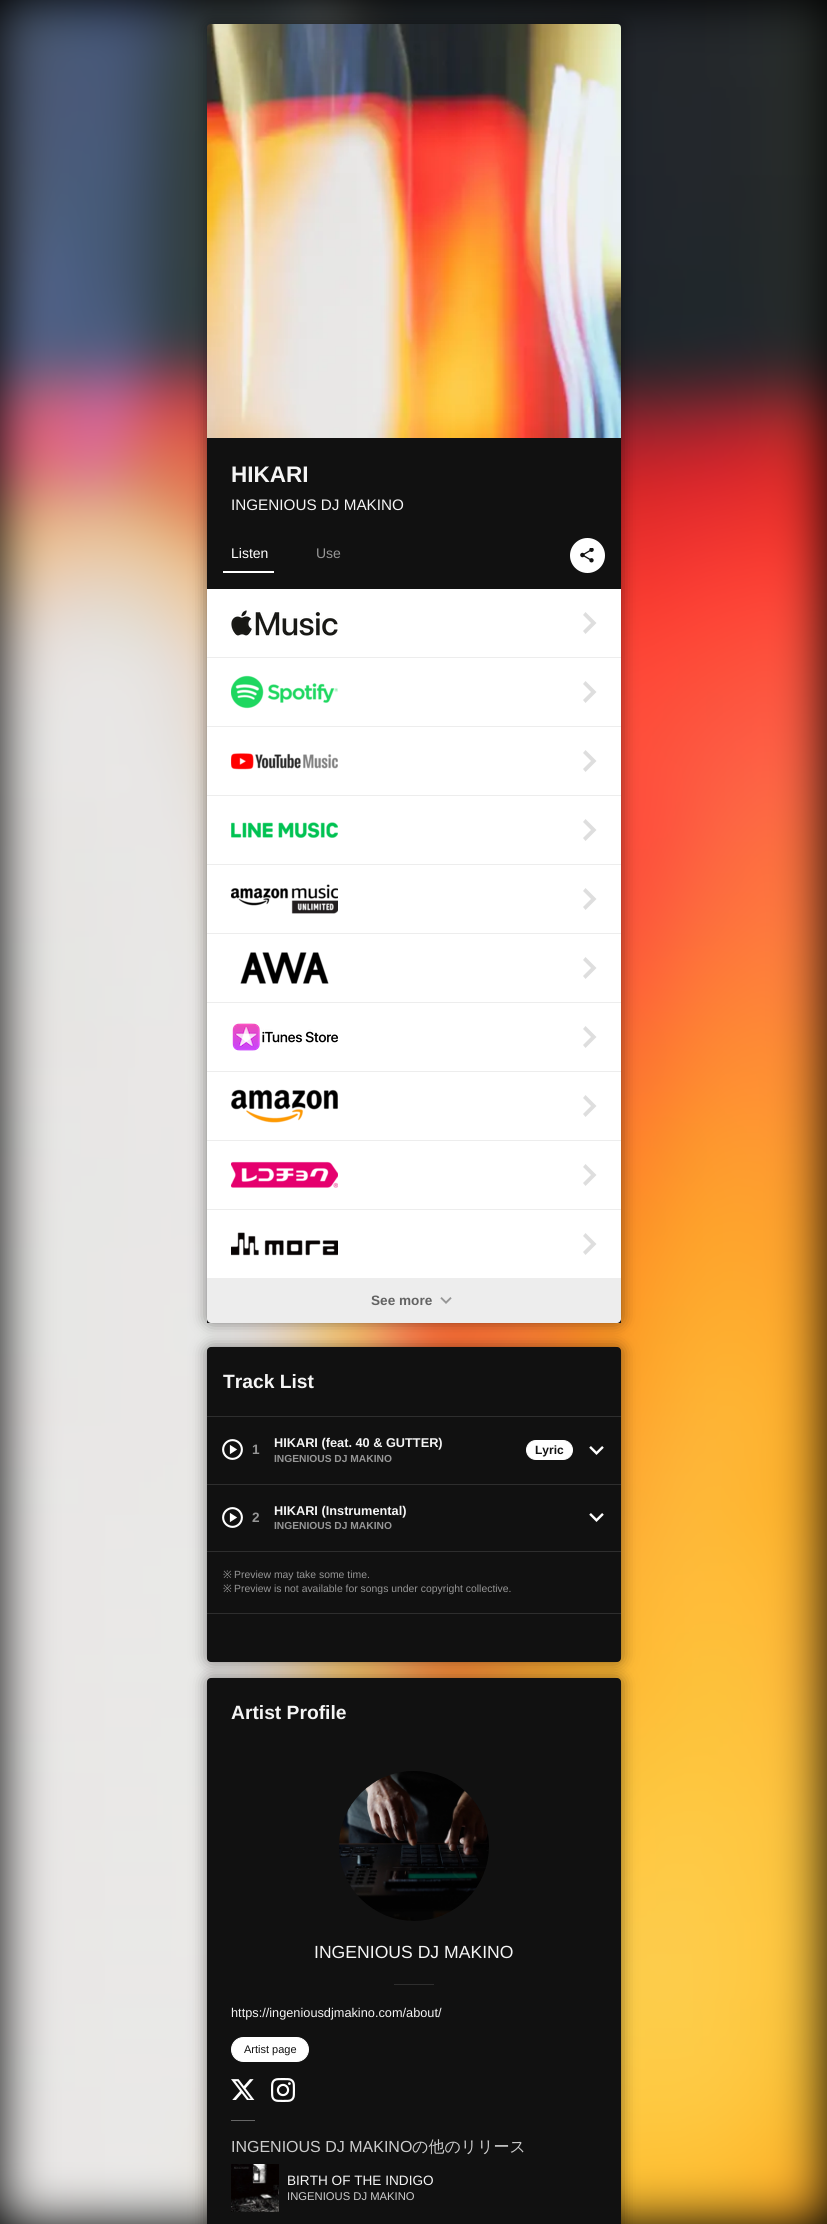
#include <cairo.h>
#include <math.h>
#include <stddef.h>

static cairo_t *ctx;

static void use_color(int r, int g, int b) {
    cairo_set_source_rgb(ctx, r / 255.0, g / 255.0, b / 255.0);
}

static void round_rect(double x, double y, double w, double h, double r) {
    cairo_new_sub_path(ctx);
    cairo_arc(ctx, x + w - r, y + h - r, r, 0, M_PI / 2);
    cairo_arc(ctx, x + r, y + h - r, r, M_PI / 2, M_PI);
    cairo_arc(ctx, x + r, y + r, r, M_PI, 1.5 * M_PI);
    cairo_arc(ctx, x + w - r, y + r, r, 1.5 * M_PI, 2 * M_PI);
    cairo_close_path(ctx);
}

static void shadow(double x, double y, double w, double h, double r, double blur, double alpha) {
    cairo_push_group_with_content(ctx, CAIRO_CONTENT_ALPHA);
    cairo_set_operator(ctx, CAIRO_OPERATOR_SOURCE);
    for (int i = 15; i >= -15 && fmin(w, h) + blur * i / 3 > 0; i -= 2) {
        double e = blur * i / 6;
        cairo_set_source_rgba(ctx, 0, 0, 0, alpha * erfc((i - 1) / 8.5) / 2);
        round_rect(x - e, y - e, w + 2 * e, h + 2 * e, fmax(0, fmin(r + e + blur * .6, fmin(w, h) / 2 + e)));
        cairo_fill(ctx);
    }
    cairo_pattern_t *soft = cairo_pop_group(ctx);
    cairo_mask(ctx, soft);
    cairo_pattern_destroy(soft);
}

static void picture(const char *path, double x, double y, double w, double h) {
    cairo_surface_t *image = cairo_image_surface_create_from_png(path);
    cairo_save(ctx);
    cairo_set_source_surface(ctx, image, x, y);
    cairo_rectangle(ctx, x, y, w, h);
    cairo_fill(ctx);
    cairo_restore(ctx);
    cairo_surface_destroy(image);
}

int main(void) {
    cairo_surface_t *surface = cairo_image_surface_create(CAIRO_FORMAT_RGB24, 827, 2224);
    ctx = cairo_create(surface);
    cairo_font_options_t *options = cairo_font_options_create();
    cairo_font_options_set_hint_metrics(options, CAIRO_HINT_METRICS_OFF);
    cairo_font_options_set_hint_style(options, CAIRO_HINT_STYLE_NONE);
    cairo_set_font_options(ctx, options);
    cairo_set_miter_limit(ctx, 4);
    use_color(0, 0, 0);
    cairo_paint(ctx);
    picture("img1.png", 0, 0, 827, 2224);
    shadow(207, 24, 414, 1299, 4, 8, 0.47);
    picture("img2.png", 207, 24, 414, 414);
    use_color(17, 17, 17);
    cairo_rectangle(ctx, 207, 438, 414, 885);
    cairo_fill(ctx);
    cairo_select_font_face(ctx, "Liberation Sans", CAIRO_FONT_SLANT_NORMAL, CAIRO_FONT_WEIGHT_BOLD);
    cairo_set_font_size(ctx, 22.5);
    use_color(245, 245, 245);
    cairo_move_to(ctx, 231, 482);
    cairo_show_text(ctx, "HIKARI");
    cairo_select_font_face(ctx, "Liberation Sans", CAIRO_FONT_SLANT_NORMAL, CAIRO_FONT_WEIGHT_NORMAL);
    cairo_set_font_size(ctx, 15.25);
    cairo_move_to(ctx, 231, 510);
    cairo_show_text(ctx, "INGENIOUS DJ MAKINO");
    cairo_set_font_size(ctx, 14);
    use_color(255, 255, 255);
    cairo_move_to(ctx, 231, 558);
    cairo_show_text(ctx, "Listen");
    cairo_rectangle(ctx, 223, 571, 51, 2);
    cairo_fill(ctx);
    use_color(150, 150, 150);
    cairo_move_to(ctx, 316, 558);
    cairo_show_text(ctx, "Use");
    use_color(255, 255, 255);
    cairo_new_path(ctx);
    cairo_arc(ctx, 587.5, 555.5, 17.5, 0, 2 * M_PI);
    cairo_fill(ctx);
    picture("img3.png", 580, 548, 14, 15);
    cairo_rectangle(ctx, 207, 589, 414, 689);
    cairo_fill(ctx);
    picture("img4.png", 231, 610, 107, 26);
    use_color(222, 222, 222);
    cairo_new_path(ctx);
    cairo_move_to(ctx, 583, 631);
    cairo_line_to(ctx, 591, 623);
    cairo_line_to(ctx, 583, 615);
    cairo_line_to(ctx, 585.5, 612);
    cairo_line_to(ctx, 596.5, 623);
    cairo_line_to(ctx, 585.5, 634);
    cairo_close_path(ctx);
    cairo_fill(ctx);
    use_color(237, 237, 237);
    cairo_rectangle(ctx, 207, 657, 414, 1);
    cairo_fill(ctx);
    picture("img5.png", 231, 675, 107, 34);
    use_color(222, 222, 222);
    cairo_new_path(ctx);
    cairo_move_to(ctx, 583, 700);
    cairo_line_to(ctx, 591, 692);
    cairo_line_to(ctx, 583, 684);
    cairo_line_to(ctx, 585.5, 681);
    cairo_line_to(ctx, 596.5, 692);
    cairo_line_to(ctx, 585.5, 703);
    cairo_close_path(ctx);
    cairo_fill(ctx);
    use_color(237, 237, 237);
    cairo_rectangle(ctx, 207, 726, 414, 1);
    cairo_fill(ctx);
    picture("img6.png", 231, 753, 107, 17);
    use_color(222, 222, 222);
    cairo_new_path(ctx);
    cairo_move_to(ctx, 583, 769);
    cairo_line_to(ctx, 591, 761);
    cairo_line_to(ctx, 583, 753);
    cairo_line_to(ctx, 585.5, 750);
    cairo_line_to(ctx, 596.5, 761);
    cairo_line_to(ctx, 585.5, 772);
    cairo_close_path(ctx);
    cairo_fill(ctx);
    use_color(237, 237, 237);
    cairo_rectangle(ctx, 207, 795, 414, 1);
    cairo_fill(ctx);
    picture("img7.png", 231, 822, 107, 16);
    use_color(222, 222, 222);
    cairo_new_path(ctx);
    cairo_move_to(ctx, 583, 838);
    cairo_line_to(ctx, 591, 830);
    cairo_line_to(ctx, 583, 822);
    cairo_line_to(ctx, 585.5, 819);
    cairo_line_to(ctx, 596.5, 830);
    cairo_line_to(ctx, 585.5, 841);
    cairo_close_path(ctx);
    cairo_fill(ctx);
    use_color(237, 237, 237);
    cairo_rectangle(ctx, 207, 864, 414, 1);
    cairo_fill(ctx);
    picture("img8.png", 231, 884, 107, 30);
    use_color(222, 222, 222);
    cairo_new_path(ctx);
    cairo_move_to(ctx, 583, 907);
    cairo_line_to(ctx, 591, 899);
    cairo_line_to(ctx, 583, 891);
    cairo_line_to(ctx, 585.5, 888);
    cairo_line_to(ctx, 596.5, 899);
    cairo_line_to(ctx, 585.5, 910);
    cairo_close_path(ctx);
    cairo_fill(ctx);
    use_color(237, 237, 237);
    cairo_rectangle(ctx, 207, 933, 414, 1);
    cairo_fill(ctx);
    picture("img9.png", 240, 952, 89, 32);
    use_color(222, 222, 222);
    cairo_new_path(ctx);
    cairo_move_to(ctx, 583, 976);
    cairo_line_to(ctx, 591, 968);
    cairo_line_to(ctx, 583, 960);
    cairo_line_to(ctx, 585.5, 957);
    cairo_line_to(ctx, 596.5, 968);
    cairo_line_to(ctx, 585.5, 979);
    cairo_close_path(ctx);
    cairo_fill(ctx);
    use_color(237, 237, 237);
    cairo_rectangle(ctx, 207, 1002, 414, 1);
    cairo_fill(ctx);
    picture("img10.png", 232, 1023, 106, 28);
    use_color(222, 222, 222);
    cairo_new_path(ctx);
    cairo_move_to(ctx, 583, 1045);
    cairo_line_to(ctx, 591, 1037);
    cairo_line_to(ctx, 583, 1029);
    cairo_line_to(ctx, 585.5, 1026);
    cairo_line_to(ctx, 596.5, 1037);
    cairo_line_to(ctx, 585.5, 1048);
    cairo_close_path(ctx);
    cairo_fill(ctx);
    use_color(237, 237, 237);
    cairo_rectangle(ctx, 207, 1071, 414, 1);
    cairo_fill(ctx);
    picture("img11.png", 231, 1089, 107, 34);
    use_color(222, 222, 222);
    cairo_new_path(ctx);
    cairo_move_to(ctx, 583, 1114);
    cairo_line_to(ctx, 591, 1106);
    cairo_line_to(ctx, 583, 1098);
    cairo_line_to(ctx, 585.5, 1095);
    cairo_line_to(ctx, 596.5, 1106);
    cairo_line_to(ctx, 585.5, 1117);
    cairo_close_path(ctx);
    cairo_fill(ctx);
    use_color(237, 237, 237);
    cairo_rectangle(ctx, 207, 1140, 414, 1);
    cairo_fill(ctx);
    picture("img12.png", 231, 1161, 107, 27);
    use_color(222, 222, 222);
    cairo_new_path(ctx);
    cairo_move_to(ctx, 583, 1183);
    cairo_line_to(ctx, 591, 1175);
    cairo_line_to(ctx, 583, 1167);
    cairo_line_to(ctx, 585.5, 1164);
    cairo_line_to(ctx, 596.5, 1175);
    cairo_line_to(ctx, 585.5, 1186);
    cairo_close_path(ctx);
    cairo_fill(ctx);
    use_color(237, 237, 237);
    cairo_rectangle(ctx, 207, 1209, 414, 1);
    cairo_fill(ctx);
    picture("img13.png", 231, 1232, 107, 24);
    use_color(222, 222, 222);
    cairo_new_path(ctx);
    cairo_move_to(ctx, 583, 1252);
    cairo_line_to(ctx, 591, 1244);
    cairo_line_to(ctx, 583, 1236);
    cairo_line_to(ctx, 585.5, 1233);
    cairo_line_to(ctx, 596.5, 1244);
    cairo_line_to(ctx, 585.5, 1255);
    cairo_close_path(ctx);
    cairo_fill(ctx);
    use_color(0, 0, 0);
    shadow(207, 1347, 414, 315, 4, 8, 0.47);
    use_color(237, 237, 237);
    cairo_new_path(ctx);
    cairo_move_to(ctx, 207, 1278);
    cairo_line_to(ctx, 621, 1278);
    cairo_line_to(ctx, 621, 1319);
    cairo_curve_to(ctx, 621, 1321, 619, 1323, 617, 1323);
    cairo_line_to(ctx, 211, 1323);
    cairo_curve_to(ctx, 209, 1323, 207, 1321, 207, 1319);
    cairo_close_path(ctx);
    cairo_fill(ctx);
    cairo_select_font_face(ctx, "Liberation Sans", CAIRO_FONT_SLANT_NORMAL, CAIRO_FONT_WEIGHT_BOLD);
    cairo_set_font_size(ctx, 13.6);
    use_color(99, 99, 99);
    cairo_move_to(ctx, 371, 1305);
    cairo_show_text(ctx, "See more");
    picture("img14.png", 440, 1297, 12, 7);
    use_color(17, 17, 17);
    round_rect(207, 1347, 414, 315, 4);
    cairo_fill(ctx);
    use_color(46, 46, 46);
    cairo_rectangle(ctx, 207, 1416, 414, 1);
    cairo_fill(ctx);
    cairo_set_font_size(ctx, 19.25);
    use_color(245, 245, 245);
    cairo_move_to(ctx, 223, 1388);
    cairo_show_text(ctx, "Track List");
    use_color(46, 46, 46);
    cairo_rectangle(ctx, 207, 1613, 414, 1);
    cairo_fill(ctx);
    cairo_rectangle(ctx, 207, 1484, 414, 1);
    cairo_fill(ctx);
    picture("img15.png", 222, 1439, 21, 21);
    cairo_set_font_size(ctx, 13.6);
    use_color(150, 150, 150);
    cairo_move_to(ctx, 252, 1454);
    cairo_show_text(ctx, "1");
    cairo_set_font_size(ctx, 12.75);
    use_color(245, 245, 245);
    cairo_move_to(ctx, 274, 1447);
    cairo_show_text(ctx, "HIKARI (feat. 40 & GUTTER)");
    cairo_set_font_size(ctx, 10.25);
    use_color(150, 150, 150);
    cairo_move_to(ctx, 274, 1462);
    cairo_show_text(ctx, "INGENIOUS DJ MAKINO");
    use_color(255, 255, 255);
    round_rect(526.5, 1440.5, 46, 19, 9.5);
    cairo_fill_preserve(ctx);
    cairo_set_line_width(ctx, 1);
    cairo_stroke(ctx);
    cairo_set_font_size(ctx, 12);
    use_color(17, 17, 17);
    cairo_move_to(ctx, 535, 1454);
    cairo_show_text(ctx, "Lyric");
    picture("img16.png", 589, 1446, 15, 9);
    use_color(46, 46, 46);
    cairo_rectangle(ctx, 207, 1551, 414, 1);
    cairo_fill(ctx);
    picture("img15.png", 222, 1507, 21, 21);
    cairo_set_font_size(ctx, 13.6);
    use_color(150, 150, 150);
    cairo_move_to(ctx, 252, 1522);
    cairo_show_text(ctx, "2");
    cairo_set_font_size(ctx, 12.75);
    use_color(245, 245, 245);
    cairo_move_to(ctx, 274, 1515);
    cairo_show_text(ctx, "HIKARI (Instrumental)");
    cairo_set_font_size(ctx, 10.25);
    use_color(150, 150, 150);
    cairo_move_to(ctx, 274, 1529);
    cairo_show_text(ctx, "INGENIOUS DJ MAKINO");
    picture("img16.png", 589, 1513, 15, 9);
    cairo_select_font_face(ctx, "Noto Sans", CAIRO_FONT_SLANT_NORMAL, CAIRO_FONT_WEIGHT_NORMAL);
    cairo_set_font_size(ctx, 10.4);
    cairo_move_to(ctx, 223, 1578);
    cairo_show_text(ctx, "※");
    cairo_select_font_face(ctx, "Liberation Sans", CAIRO_FONT_SLANT_NORMAL, CAIRO_FONT_WEIGHT_NORMAL);
    cairo_move_to(ctx, 234, 1578);
    cairo_show_text(ctx, "Preview may take some time.");
    cairo_select_font_face(ctx, "Noto Sans", CAIRO_FONT_SLANT_NORMAL, CAIRO_FONT_WEIGHT_NORMAL);
    cairo_move_to(ctx, 223, 1592);
    cairo_show_text(ctx, "※");
    cairo_select_font_face(ctx, "Liberation Sans", CAIRO_FONT_SLANT_NORMAL, CAIRO_FONT_WEIGHT_NORMAL);
    cairo_move_to(ctx, 234, 1592);
    cairo_show_text(ctx, "Preview is not available for songs under copyright collective.");
    use_color(0, 0, 0);
    shadow(207, 1678, 414, 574, 4, 8, 0.47);
    use_color(17, 17, 17);
    round_rect(207, 1678, 414, 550, 4);
    cairo_fill(ctx);
    cairo_select_font_face(ctx, "Liberation Sans", CAIRO_FONT_SLANT_NORMAL, CAIRO_FONT_WEIGHT_BOLD);
    cairo_set_font_size(ctx, 19.25);
    use_color(245, 245, 245);
    cairo_move_to(ctx, 231, 1719);
    cairo_show_text(ctx, "Artist Profile");
    picture("img17.png", 339, 1771, 150, 150);
    cairo_select_font_face(ctx, "Liberation Sans", CAIRO_FONT_SLANT_NORMAL, CAIRO_FONT_WEIGHT_NORMAL);
    cairo_set_font_size(ctx, 17.6);
    cairo_move_to(ctx, 314, 1958);
    cairo_show_text(ctx, "INGENIOUS DJ MAKINO");
    use_color(46, 46, 46);
    cairo_rectangle(ctx, 394, 1984, 40, 1);
    cairo_fill(ctx);
    cairo_set_font_size(ctx, 12.75);
    use_color(245, 245, 245);
    cairo_move_to(ctx, 231, 2017);
    cairo_show_text(ctx, "https://ingeniousdjmakino.com/about/");
    use_color(255, 255, 255);
    round_rect(231.5, 2037.5, 77, 24, 12);
    cairo_fill_preserve(ctx);
    cairo_stroke(ctx);
    cairo_set_font_size(ctx, 11);
    use_color(17, 17, 17);
    cairo_move_to(ctx, 244, 2053);
    cairo_show_text(ctx, "Artist page");
    picture("img18.png", 231, 2079, 24, 21);
    picture("img19.png", 271, 2078, 24, 24);
    use_color(102, 102, 102);
    cairo_rectangle(ctx, 231, 2120, 24, 1);
    cairo_fill(ctx);
    cairo_set_font_size(ctx, 16);
    use_color(204, 204, 204);
    cairo_move_to(ctx, 231, 2152);
    cairo_show_text(ctx, "INGENIOUS DJ MAKINO");
    cairo_select_font_face(ctx, "WenQuanYi Zen Hei Medium", CAIRO_FONT_SLANT_NORMAL, CAIRO_FONT_WEIGHT_NORMAL);
    cairo_move_to(ctx, 412, 2152);
    cairo_show_text(ctx, "の他のリリース");
    picture("img20.png", 231, 2164, 48, 48);
    cairo_select_font_face(ctx, "Liberation Sans", CAIRO_FONT_SLANT_NORMAL, CAIRO_FONT_WEIGHT_NORMAL);
    cairo_set_font_size(ctx, 13.6);
    use_color(245, 245, 245);
    cairo_move_to(ctx, 287, 2185);
    cairo_show_text(ctx, "BIRTH OF THE INDIGO");
    cairo_set_font_size(ctx, 11.25);
    use_color(204, 204, 204);
    cairo_move_to(ctx, 287, 2200);
    cairo_show_text(ctx, "INGENIOUS DJ MAKINO");
    cairo_surface_write_to_png(surface, "result.png");
    cairo_font_options_destroy(options);
    cairo_destroy(ctx);
    cairo_surface_destroy(surface);
    return 0;
}
